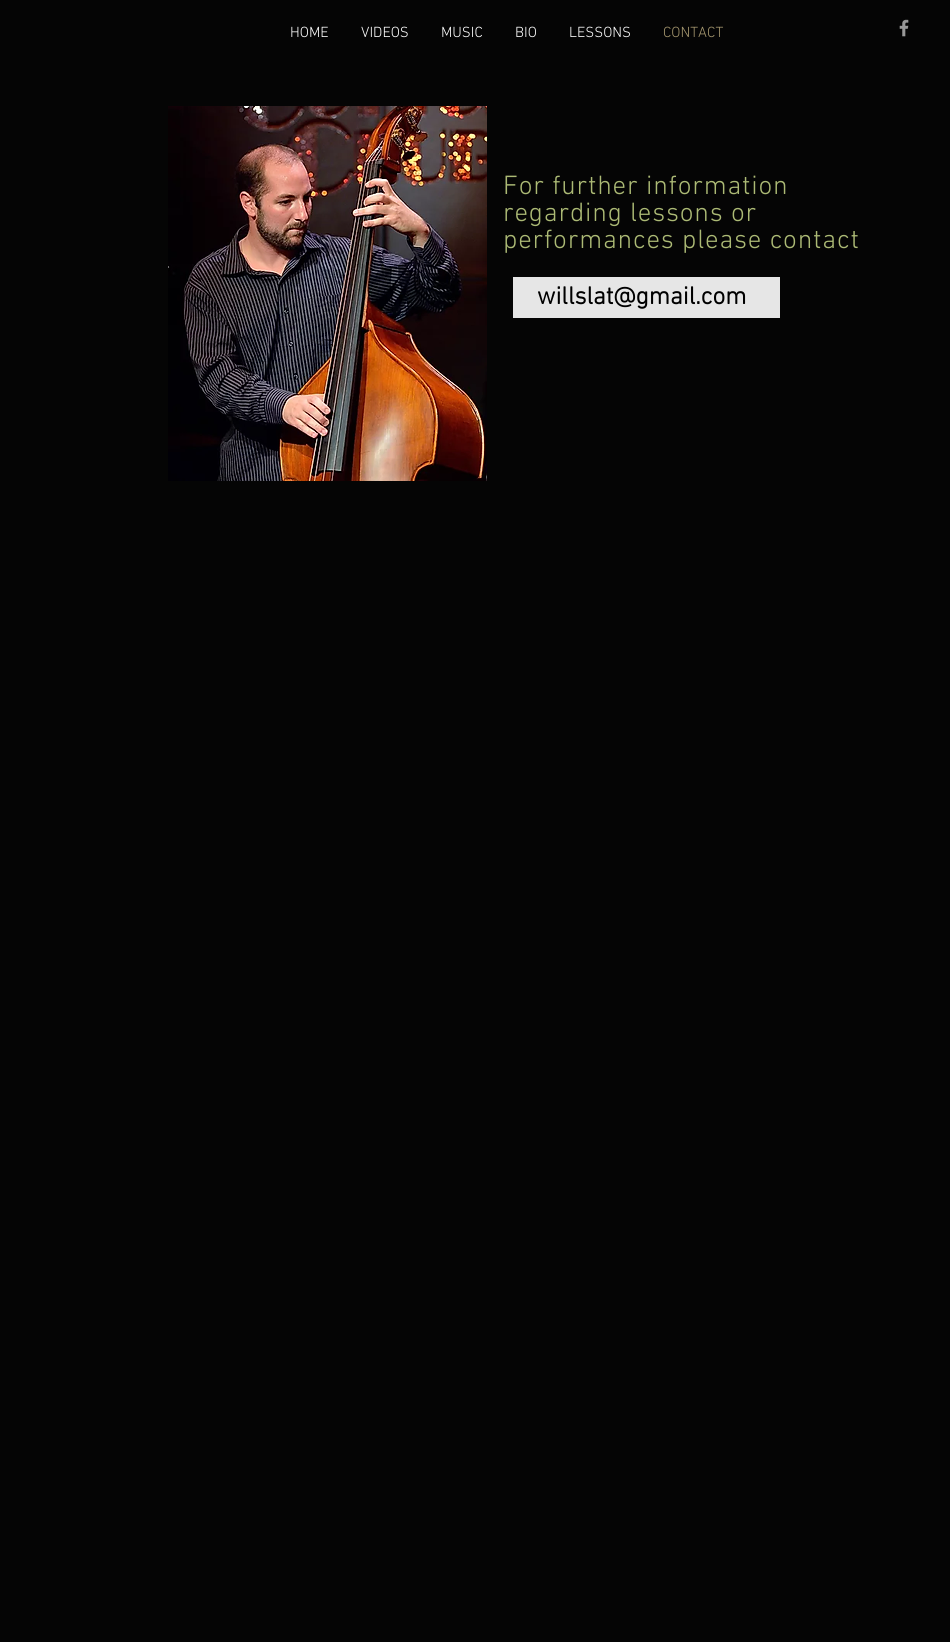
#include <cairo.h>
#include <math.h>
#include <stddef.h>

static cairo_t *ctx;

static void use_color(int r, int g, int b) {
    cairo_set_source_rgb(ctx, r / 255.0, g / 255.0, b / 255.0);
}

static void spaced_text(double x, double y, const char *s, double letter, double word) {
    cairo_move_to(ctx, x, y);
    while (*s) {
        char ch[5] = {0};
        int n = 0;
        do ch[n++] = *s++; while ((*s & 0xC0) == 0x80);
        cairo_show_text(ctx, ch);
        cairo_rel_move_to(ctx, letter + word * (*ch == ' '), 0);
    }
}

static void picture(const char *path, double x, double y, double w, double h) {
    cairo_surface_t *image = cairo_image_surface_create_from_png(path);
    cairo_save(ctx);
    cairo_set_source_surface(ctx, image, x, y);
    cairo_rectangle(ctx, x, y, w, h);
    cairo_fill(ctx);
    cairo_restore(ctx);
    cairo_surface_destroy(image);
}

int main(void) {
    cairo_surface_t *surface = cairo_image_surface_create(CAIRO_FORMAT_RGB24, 950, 1642);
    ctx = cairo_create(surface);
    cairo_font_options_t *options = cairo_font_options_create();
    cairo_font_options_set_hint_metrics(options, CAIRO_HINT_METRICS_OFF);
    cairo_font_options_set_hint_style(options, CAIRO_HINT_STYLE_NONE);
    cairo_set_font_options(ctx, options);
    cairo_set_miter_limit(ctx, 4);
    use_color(5, 5, 5);
    cairo_paint(ctx);
    cairo_select_font_face(ctx, "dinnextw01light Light", CAIRO_FONT_SLANT_NORMAL, CAIRO_FONT_WEIGHT_NORMAL);
    cairo_set_font_size(ctx, 15);
    use_color(255, 255, 255);
    cairo_move_to(ctx, 290, 37);
    cairo_show_text(ctx, "HOME");
    cairo_move_to(ctx, 361, 37);
    cairo_show_text(ctx, "VIDEOS");
    cairo_move_to(ctx, 441, 37);
    cairo_show_text(ctx, "MUSIC");
    cairo_move_to(ctx, 515, 37);
    cairo_show_text(ctx, "BIO");
    cairo_move_to(ctx, 569, 37);
    cairo_show_text(ctx, "LESSONS");
    use_color(163, 149, 109);
    cairo_move_to(ctx, 663, 37);
    cairo_show_text(ctx, "CONTACT");
    picture("img1.png", 899, 19, 10, 18);
    picture("img2.png", 168, 106, 319, 375);
    cairo_set_font_size(ctx, 27);
    use_color(172, 186, 117);
    spaced_text(503, 194, "For further information", 0.8, 0);
    spaced_text(503, 221, "regarding lessons or", 0.8, 0);
    spaced_text(503, 248, "performances please contact", 0.8, 0);
    use_color(230, 230, 230);
    cairo_rectangle(ctx, 513, 277, 267, 41);
    cairo_fill(ctx);
    cairo_select_font_face(ctx, "dinnextw01light", CAIRO_FONT_SLANT_NORMAL, CAIRO_FONT_WEIGHT_BOLD);
    cairo_set_font_size(ctx, 25);
    use_color(0, 0, 0);
    cairo_move_to(ctx, 537, 304);
    cairo_show_text(ctx, "willslat@gmail.com");
    cairo_surface_write_to_png(surface, "result.png");
    cairo_font_options_destroy(options);
    cairo_destroy(ctx);
    cairo_surface_destroy(surface);
    return 0;
}
